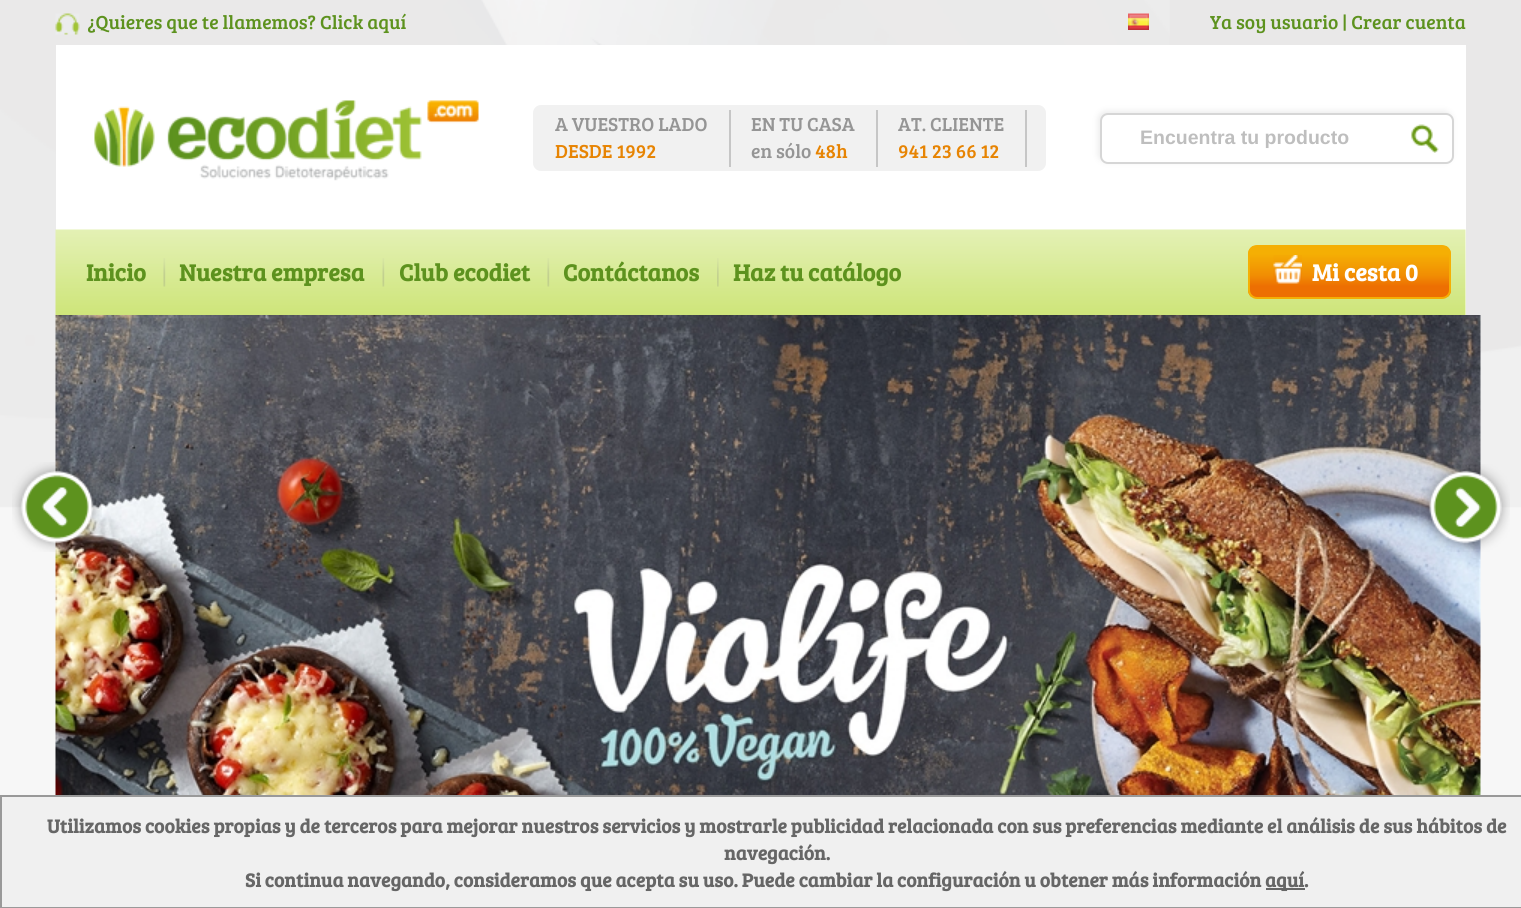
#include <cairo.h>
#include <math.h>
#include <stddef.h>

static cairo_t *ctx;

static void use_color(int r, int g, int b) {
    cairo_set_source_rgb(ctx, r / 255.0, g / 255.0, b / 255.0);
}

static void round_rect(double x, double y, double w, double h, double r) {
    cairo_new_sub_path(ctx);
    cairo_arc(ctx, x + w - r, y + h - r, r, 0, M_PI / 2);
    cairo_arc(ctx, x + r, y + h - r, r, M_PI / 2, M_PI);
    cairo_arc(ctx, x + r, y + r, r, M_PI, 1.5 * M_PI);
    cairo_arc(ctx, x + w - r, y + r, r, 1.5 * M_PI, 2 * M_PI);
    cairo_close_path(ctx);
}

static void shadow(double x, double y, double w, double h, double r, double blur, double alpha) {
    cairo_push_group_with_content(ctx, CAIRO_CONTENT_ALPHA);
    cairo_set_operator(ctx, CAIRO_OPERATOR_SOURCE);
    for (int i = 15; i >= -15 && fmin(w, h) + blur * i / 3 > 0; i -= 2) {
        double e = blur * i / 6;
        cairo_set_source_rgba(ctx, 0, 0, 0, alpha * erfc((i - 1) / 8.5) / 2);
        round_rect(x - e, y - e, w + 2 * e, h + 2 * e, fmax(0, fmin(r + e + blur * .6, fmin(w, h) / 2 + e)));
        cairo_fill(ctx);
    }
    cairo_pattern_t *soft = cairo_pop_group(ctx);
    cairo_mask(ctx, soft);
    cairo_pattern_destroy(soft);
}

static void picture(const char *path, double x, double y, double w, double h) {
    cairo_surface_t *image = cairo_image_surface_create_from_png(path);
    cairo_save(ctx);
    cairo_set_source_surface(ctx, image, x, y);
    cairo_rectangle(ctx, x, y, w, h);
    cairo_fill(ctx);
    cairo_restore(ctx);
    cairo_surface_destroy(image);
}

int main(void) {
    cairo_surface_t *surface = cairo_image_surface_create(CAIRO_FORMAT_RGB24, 1521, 908);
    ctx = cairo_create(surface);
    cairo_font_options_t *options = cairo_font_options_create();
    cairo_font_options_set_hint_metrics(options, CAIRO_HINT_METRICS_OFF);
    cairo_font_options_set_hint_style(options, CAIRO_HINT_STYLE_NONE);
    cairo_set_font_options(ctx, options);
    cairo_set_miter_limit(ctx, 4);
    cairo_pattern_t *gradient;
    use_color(247, 247, 247);
    cairo_paint(ctx);
    picture("img1.png", 0, 0, 1521, 509);
    picture("img2.png", 55, 13, 25, 22);
    cairo_select_font_face(ctx, "Bree Serif", CAIRO_FONT_SLANT_NORMAL, CAIRO_FONT_WEIGHT_NORMAL);
    cairo_set_font_size(ctx, 19.5);
    use_color(93, 146, 30);
    cairo_move_to(ctx, 87, 29);
    cairo_show_text(ctx, "¿Quieres que te llamemos? Click aquí");
    picture("img3.png", 1128, 13, 21, 17);
    cairo_move_to(ctx, 1210, 29);
    cairo_show_text(ctx, "Ya soy usuario | Crear cuenta");
    use_color(255, 255, 255);
    cairo_rectangle(ctx, 56, 45, 1410, 270);
    cairo_fill(ctx);
    picture("img4.png", 94, 100, 385, 81);
    use_color(241, 241, 241);
    round_rect(534, 106, 511, 64, 7);
    cairo_fill_preserve(ctx);
    cairo_stroke(ctx);
    use_color(198, 198, 198);
    cairo_rectangle(ctx, 729, 110, 2, 57);
    cairo_fill(ctx);
    use_color(149, 149, 149);
    cairo_move_to(ctx, 555, 131);
    cairo_show_text(ctx, "A VUESTRO LADO");
    use_color(231, 132, 3);
    cairo_move_to(ctx, 555, 158);
    cairo_show_text(ctx, "DESDE 1992");
    use_color(198, 198, 198);
    cairo_rectangle(ctx, 876, 110, 2, 57);
    cairo_fill(ctx);
    use_color(149, 149, 149);
    cairo_move_to(ctx, 751, 131);
    cairo_show_text(ctx, "EN TU CASA");
    cairo_move_to(ctx, 751, 158);
    cairo_show_text(ctx, "en sólo");
    use_color(231, 132, 3);
    cairo_move_to(ctx, 815, 158);
    cairo_show_text(ctx, "48h");
    use_color(198, 198, 198);
    cairo_rectangle(ctx, 1025, 110, 2, 57);
    cairo_fill(ctx);
    use_color(149, 149, 149);
    cairo_move_to(ctx, 898, 131);
    cairo_show_text(ctx, "AT. CLIENTE");
    use_color(231, 132, 3);
    cairo_move_to(ctx, 898, 158);
    cairo_show_text(ctx, "941 23 66 12");
    use_color(236, 236, 236);
    shadow(1098, 111, 354, 51, 8, 3, 1);
    use_color(255, 255, 255);
    round_rect(1101, 114, 352, 49, 7);
    cairo_fill_preserve(ctx);
    use_color(214, 214, 214);
    cairo_stroke(ctx);
    cairo_select_font_face(ctx, "Liberation Sans", CAIRO_FONT_SLANT_NORMAL, CAIRO_FONT_WEIGHT_BOLD);
    use_color(190, 190, 190);
    cairo_move_to(ctx, 1140, 144);
    cairo_show_text(ctx, "Encuentra tu producto");
    picture("img5.png", 1411, 124, 28, 29);
    picture("img6.png", 55, 229, 1411, 86);
    cairo_select_font_face(ctx, "Bree Serif", CAIRO_FONT_SLANT_NORMAL, CAIRO_FONT_WEIGHT_BOLD);
    cairo_set_font_size(ctx, 24);
    use_color(93, 146, 30);
    cairo_move_to(ctx, 86, 281);
    cairo_show_text(ctx, "Inicio");
    picture("img7.png", 163, 258, 3, 29);
    cairo_move_to(ctx, 179, 281);
    cairo_show_text(ctx, "Nuestra empresa");
    picture("img8.png", 382, 258, 3, 29);
    cairo_move_to(ctx, 399, 281);
    cairo_show_text(ctx, "Club ecodiet");
    picture("img7.png", 547, 258, 3, 29);
    cairo_move_to(ctx, 563, 281);
    cairo_show_text(ctx, "Contáctanos");
    picture("img9.png", 717, 258, 2, 29);
    cairo_move_to(ctx, 733, 281);
    cairo_show_text(ctx, "Haz tu catálogo");
    cairo_save(ctx);
    round_rect(1248, 245, 203, 54, 9);
    cairo_clip(ctx);
    gradient = cairo_pattern_create_linear(1349, 246, 1349, 297);
    cairo_pattern_add_color_stop_rgba(gradient, 0.15, 0.961, 0.686, 0.016, 1);
    cairo_pattern_add_color_stop_rgba(gradient, 0.58, 0.945, 0.553, 0.012, 1);
    cairo_pattern_add_color_stop_rgba(gradient, 0.79, 0.929, 0.435, 0.008, 1);
    cairo_set_source(ctx, gradient);
    cairo_pattern_destroy(gradient);
    cairo_rectangle(ctx, 1248, 246, 203, 51);
    cairo_fill(ctx);
    cairo_restore(ctx);
    round_rect(1249, 246, 201, 52, 8);
    use_color(245, 175, 4);
    cairo_stroke(ctx);
    picture("img10.png", 1273, 255, 29, 29);
    use_color(255, 255, 255);
    cairo_move_to(ctx, 1312, 281);
    cairo_show_text(ctx, "Mi cesta 0");
    picture("img11.png", 55, 315, 1426, 480);
    picture("img12.png", 12, 462, 90, 90);
    picture("img13.png", 1421, 464, 89, 88);
    use_color(240, 240, 240);
    cairo_rectangle(ctx, 1, 796, 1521, 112);
    cairo_fill_preserve(ctx);
    use_color(153, 153, 153);
    cairo_stroke(ctx);
    cairo_set_font_size(ctx, 19.5);
    use_color(102, 102, 102);
    cairo_move_to(ctx, 47, 833);
    cairo_show_text(ctx, "Utilizamos cookies propias y de terceros para mejorar nuestros servicios y mostrarle publicidad relacionada con sus preferencias mediante el análisis de sus hábitos de");
    cairo_move_to(ctx, 724, 860);
    cairo_show_text(ctx, "navegación.");
    cairo_move_to(ctx, 245, 887);
    cairo_show_text(ctx, "Si continua navegando, consideramos que acepta su uso. Puede cambiar la configuración u obtener más información");
    cairo_rectangle(ctx, 1266, 888, 39, 2);
    cairo_fill(ctx);
    cairo_move_to(ctx, 1265, 887);
    cairo_show_text(ctx, "aquí.");
    cairo_surface_write_to_png(surface, "result.png");
    cairo_font_options_destroy(options);
    cairo_destroy(ctx);
    cairo_surface_destroy(surface);
    return 0;
}
